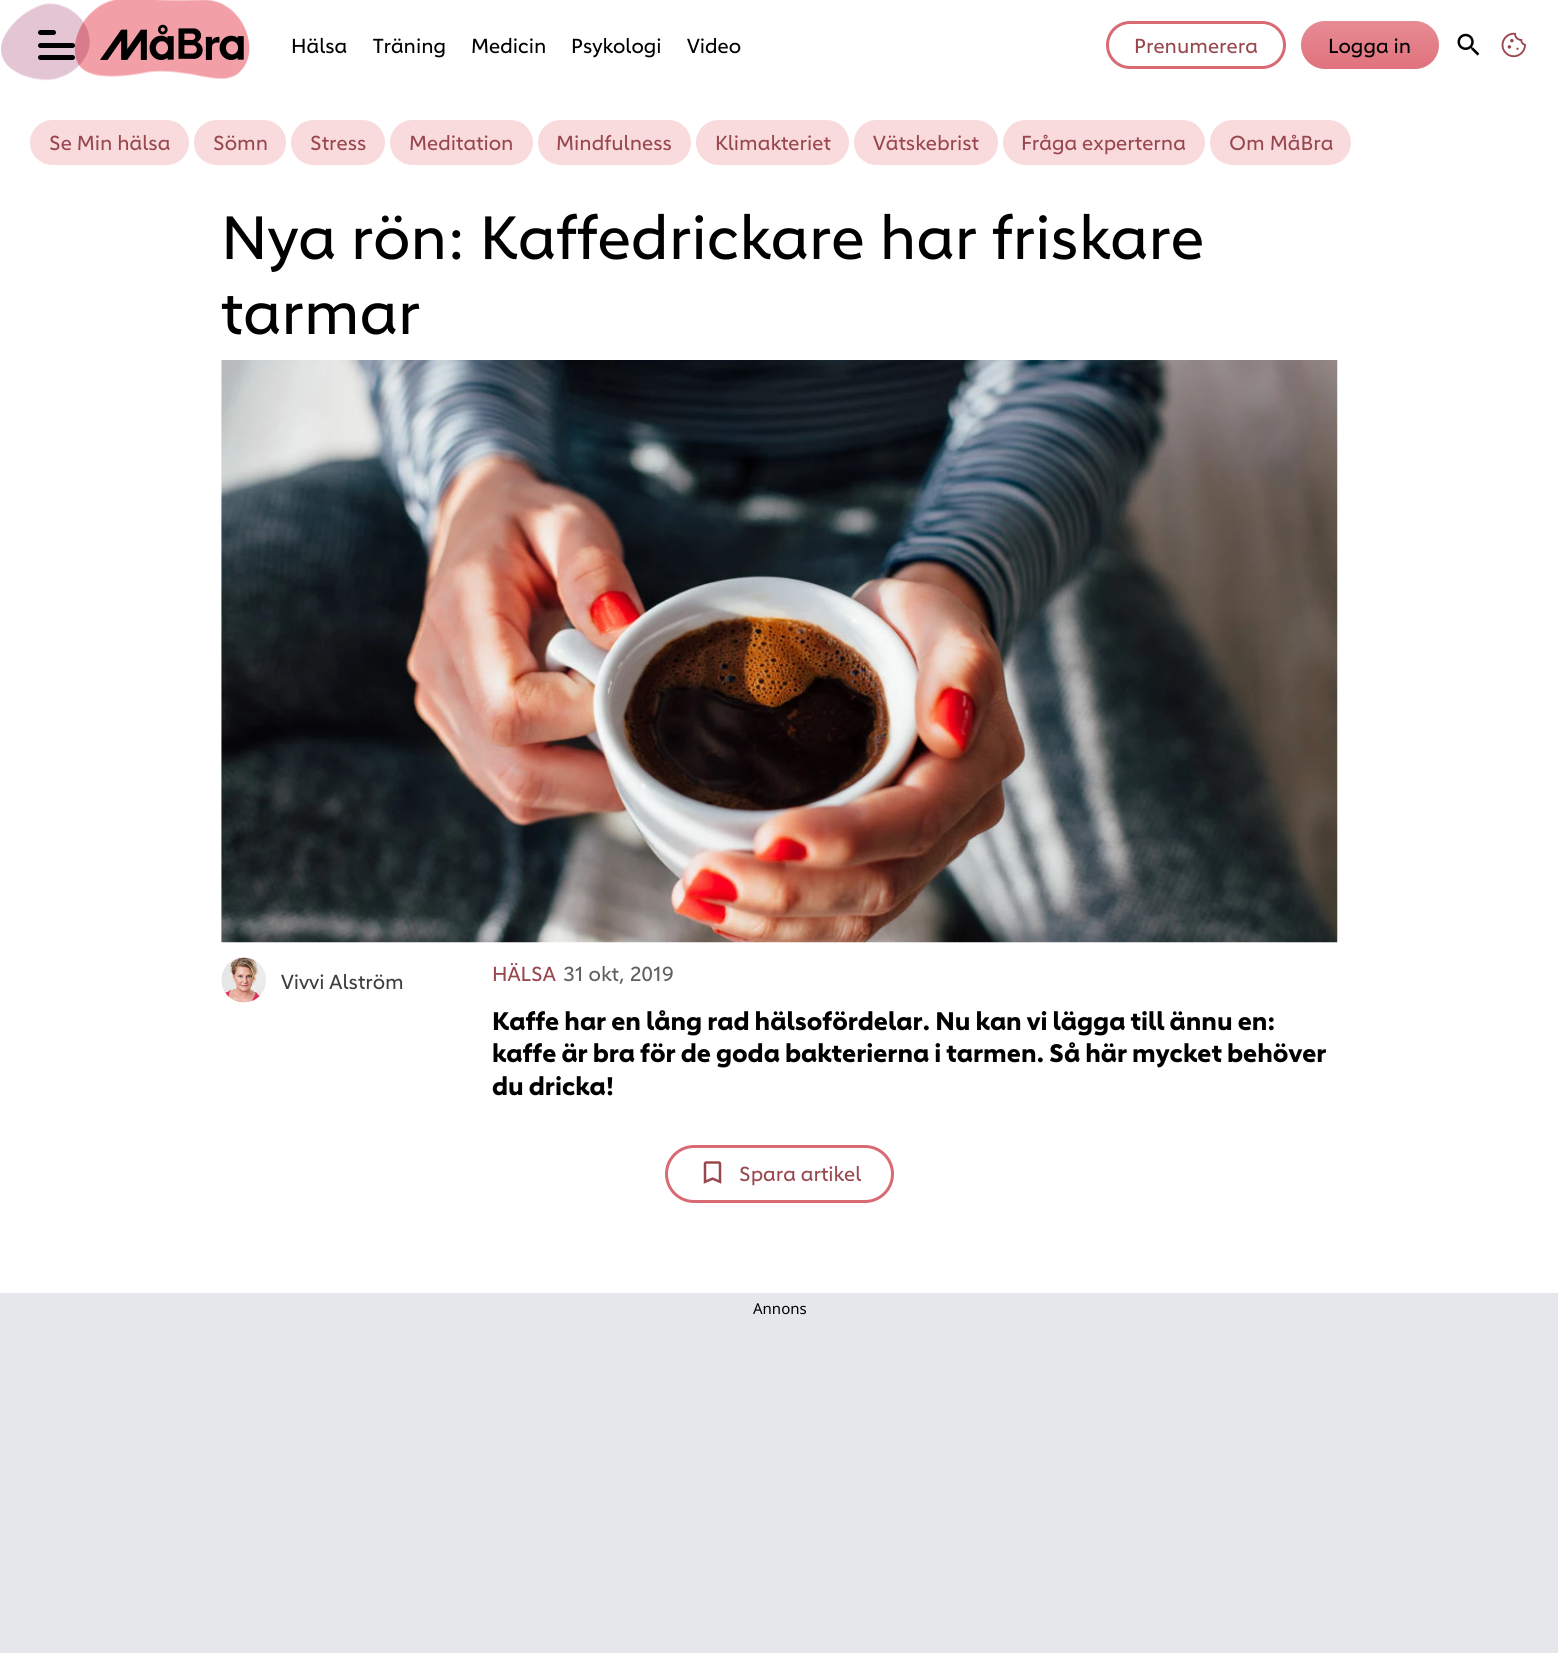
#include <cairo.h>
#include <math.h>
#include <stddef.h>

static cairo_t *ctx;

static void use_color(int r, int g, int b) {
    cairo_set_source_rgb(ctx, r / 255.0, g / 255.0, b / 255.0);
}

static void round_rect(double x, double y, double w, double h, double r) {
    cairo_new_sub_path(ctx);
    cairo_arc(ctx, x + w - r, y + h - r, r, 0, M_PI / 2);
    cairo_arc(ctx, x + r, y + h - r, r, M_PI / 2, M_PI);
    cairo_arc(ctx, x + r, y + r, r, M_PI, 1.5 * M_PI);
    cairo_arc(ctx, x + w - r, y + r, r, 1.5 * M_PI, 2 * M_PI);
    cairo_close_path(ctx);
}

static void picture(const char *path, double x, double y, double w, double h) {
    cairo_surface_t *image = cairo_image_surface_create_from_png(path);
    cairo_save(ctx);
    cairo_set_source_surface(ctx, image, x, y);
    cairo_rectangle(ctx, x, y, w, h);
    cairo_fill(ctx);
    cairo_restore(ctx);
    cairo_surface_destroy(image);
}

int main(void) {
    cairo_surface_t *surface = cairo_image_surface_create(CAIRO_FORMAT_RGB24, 1558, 1653);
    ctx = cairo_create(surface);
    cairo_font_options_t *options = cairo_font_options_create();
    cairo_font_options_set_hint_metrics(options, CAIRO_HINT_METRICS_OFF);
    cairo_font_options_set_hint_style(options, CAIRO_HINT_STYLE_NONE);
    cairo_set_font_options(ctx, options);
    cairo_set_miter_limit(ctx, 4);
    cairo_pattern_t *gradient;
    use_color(255, 255, 255);
    cairo_paint(ctx);
    picture("img1.png", 1, 0, 249, 81);
    picture("img2.png", 100, 24, 144, 36);
    use_color(0, 0, 0);
    round_rect(38, 30, 18, 5, 2.5);
    cairo_fill(ctx);
    round_rect(38, 43, 37, 5, 2.5);
    cairo_fill(ctx);
    round_rect(38, 55, 37, 5, 2.5);
    cairo_fill(ctx);
    cairo_select_font_face(ctx, "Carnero", CAIRO_FONT_SLANT_NORMAL, CAIRO_FONT_WEIGHT_NORMAL);
    cairo_set_font_size(ctx, 20);
    cairo_move_to(ctx, 291, 53);
    cairo_show_text(ctx, "Hälsa");
    cairo_move_to(ctx, 373, 53);
    cairo_show_text(ctx, "Träning");
    cairo_move_to(ctx, 471, 53);
    cairo_show_text(ctx, "Medicin");
    cairo_move_to(ctx, 571, 53);
    cairo_show_text(ctx, "Psykologi");
    cairo_move_to(ctx, 687, 53);
    cairo_show_text(ctx, "Video");
    round_rect(1107.5, 22.5, 177, 45, 22.5);
    use_color(217, 105, 115);
    cairo_set_line_width(ctx, 3);
    cairo_stroke(ctx);
    use_color(153, 71, 78);
    cairo_move_to(ctx, 1134, 53);
    cairo_show_text(ctx, "Prenumerera");
    gradient = cairo_pattern_create_linear(1370, 21, 1370, 69);
    cairo_pattern_add_color_stop_rgba(gradient, 0, 0.902, 0.545, 0.58, 1);
    cairo_pattern_add_color_stop_rgba(gradient, 1, 0.882, 0.447, 0.49, 1);
    cairo_set_source(ctx, gradient);
    cairo_pattern_destroy(gradient);
    round_rect(1301, 21, 138, 48, 24);
    cairo_fill(ctx);
    use_color(0, 0, 0);
    cairo_move_to(ctx, 1328, 53);
    cairo_show_text(ctx, "Logga in");
    picture("img3.png", 1457, 33, 23, 23);
    picture("img4.png", 1501, 32, 25, 26);
    use_color(249, 219, 221);
    round_rect(32, 122, 155, 41, 20.5);
    cairo_fill_preserve(ctx);
    cairo_set_line_width(ctx, 4);
    cairo_stroke(ctx);
    use_color(153, 71, 78);
    cairo_move_to(ctx, 49, 150);
    cairo_show_text(ctx, "Se Min hälsa");
    use_color(249, 219, 221);
    round_rect(196, 122, 88, 41, 20.5);
    cairo_fill_preserve(ctx);
    cairo_stroke(ctx);
    use_color(153, 71, 78);
    cairo_move_to(ctx, 213, 150);
    cairo_show_text(ctx, "Sömn");
    use_color(249, 219, 221);
    round_rect(293, 122, 90, 41, 20.5);
    cairo_fill_preserve(ctx);
    cairo_stroke(ctx);
    use_color(153, 71, 78);
    cairo_move_to(ctx, 310, 150);
    cairo_show_text(ctx, "Stress");
    use_color(249, 219, 221);
    round_rect(392, 122, 139, 41, 20.5);
    cairo_fill_preserve(ctx);
    cairo_stroke(ctx);
    use_color(153, 71, 78);
    cairo_move_to(ctx, 409, 150);
    cairo_show_text(ctx, "Meditation");
    use_color(249, 219, 221);
    round_rect(540, 122, 149, 41, 20.5);
    cairo_fill_preserve(ctx);
    cairo_stroke(ctx);
    use_color(153, 71, 78);
    cairo_move_to(ctx, 556, 150);
    cairo_show_text(ctx, "Mindfulness");
    use_color(249, 219, 221);
    round_rect(698, 122, 149, 41, 20.5);
    cairo_fill_preserve(ctx);
    cairo_stroke(ctx);
    use_color(153, 71, 78);
    cairo_move_to(ctx, 715, 150);
    cairo_show_text(ctx, "Klimakteriet");
    use_color(249, 219, 221);
    round_rect(856, 122, 140, 41, 20.5);
    cairo_fill_preserve(ctx);
    cairo_stroke(ctx);
    use_color(153, 71, 78);
    cairo_move_to(ctx, 873, 150);
    cairo_show_text(ctx, "Vätskebrist");
    use_color(249, 219, 221);
    round_rect(1005, 122, 198, 41, 20.5);
    cairo_fill_preserve(ctx);
    cairo_stroke(ctx);
    use_color(153, 71, 78);
    cairo_move_to(ctx, 1021, 150);
    cairo_show_text(ctx, "Fråga experterna");
    use_color(249, 219, 221);
    round_rect(1212, 122, 137, 41, 20.5);
    cairo_fill_preserve(ctx);
    cairo_stroke(ctx);
    use_color(153, 71, 78);
    cairo_move_to(ctx, 1229, 150);
    cairo_show_text(ctx, "Om MåBra");
    cairo_set_font_size(ctx, 60);
    use_color(0, 0, 0);
    cairo_move_to(ctx, 221, 259);
    cairo_show_text(ctx, "Nya rön: Kaffedrickare har friskare");
    cairo_move_to(ctx, 221, 334);
    cairo_show_text(ctx, "tarmar");
    picture("img5.png", 221, 360, 1117, 583);
    picture("img6.png", 221, 957, 45, 46);
    cairo_set_font_size(ctx, 20);
    use_color(63, 63, 63);
    cairo_move_to(ctx, 281, 989);
    cairo_show_text(ctx, "Vivvi Alström");
    use_color(153, 71, 78);
    cairo_move_to(ctx, 492, 981);
    cairo_show_text(ctx, "HÄLSA");
    use_color(95, 95, 95);
    cairo_move_to(ctx, 563, 981);
    cairo_show_text(ctx, "31 okt, 2019");
    cairo_select_font_face(ctx, "Carnero", CAIRO_FONT_SLANT_NORMAL, CAIRO_FONT_WEIGHT_BOLD);
    cairo_set_font_size(ctx, 25);
    use_color(0, 0, 0);
    cairo_move_to(ctx, 492, 1030);
    cairo_show_text(ctx, "Kaffe har en lång rad hälsofördelar. Nu kan vi lägga till ännu en:");
    cairo_move_to(ctx, 492, 1062);
    cairo_show_text(ctx, "kaffe är bra för de goda bakterierna i tarmen. Så här mycket behöver");
    cairo_move_to(ctx, 492, 1095);
    cairo_show_text(ctx, "du dricka!");
    round_rect(666.5, 1146.5, 226, 55, 27.5);
    use_color(217, 105, 115);
    cairo_set_line_width(ctx, 3);
    cairo_stroke(ctx);
    picture("img7.png", 703, 1161, 19, 23);
    cairo_select_font_face(ctx, "Carnero", CAIRO_FONT_SLANT_NORMAL, CAIRO_FONT_WEIGHT_NORMAL);
    cairo_set_font_size(ctx, 20);
    use_color(153, 71, 78);
    cairo_move_to(ctx, 739, 1181);
    cairo_show_text(ctx, "Spara artikel");
    use_color(229, 231, 235);
    cairo_rectangle(ctx, 0, 1293, 1558, 360);
    cairo_fill(ctx);
    cairo_select_font_face(ctx, "Noto Sans", CAIRO_FONT_SLANT_NORMAL, CAIRO_FONT_WEIGHT_NORMAL);
    cairo_set_font_size(ctx, 15);
    use_color(0, 0, 0);
    cairo_move_to(ctx, 753, 1314);
    cairo_show_text(ctx, "Annons");
    cairo_surface_write_to_png(surface, "result.png");
    cairo_font_options_destroy(options);
    cairo_destroy(ctx);
    cairo_surface_destroy(surface);
    return 0;
}
